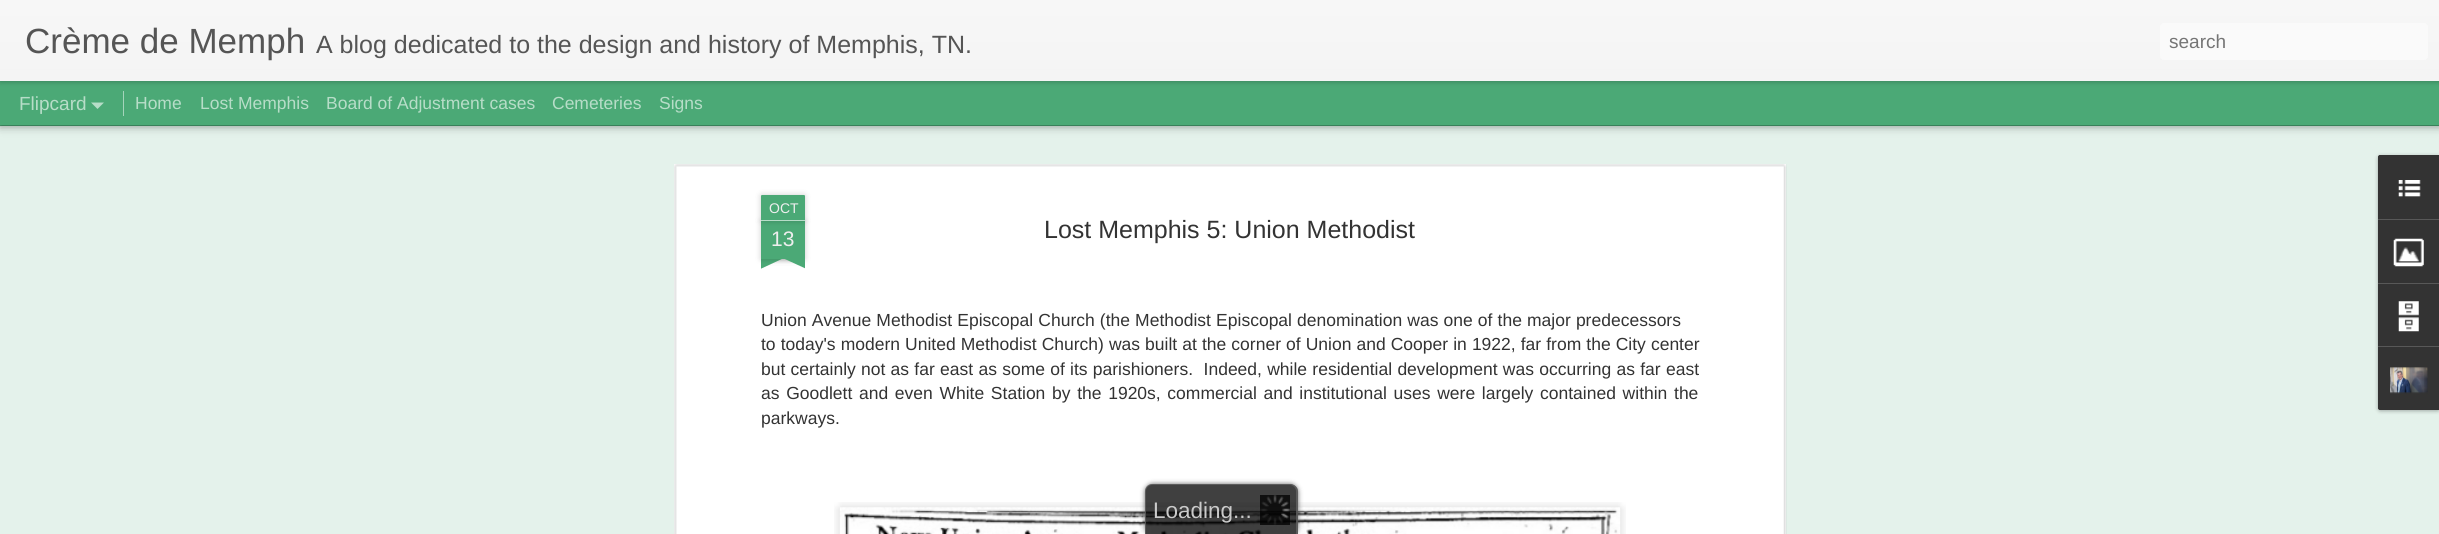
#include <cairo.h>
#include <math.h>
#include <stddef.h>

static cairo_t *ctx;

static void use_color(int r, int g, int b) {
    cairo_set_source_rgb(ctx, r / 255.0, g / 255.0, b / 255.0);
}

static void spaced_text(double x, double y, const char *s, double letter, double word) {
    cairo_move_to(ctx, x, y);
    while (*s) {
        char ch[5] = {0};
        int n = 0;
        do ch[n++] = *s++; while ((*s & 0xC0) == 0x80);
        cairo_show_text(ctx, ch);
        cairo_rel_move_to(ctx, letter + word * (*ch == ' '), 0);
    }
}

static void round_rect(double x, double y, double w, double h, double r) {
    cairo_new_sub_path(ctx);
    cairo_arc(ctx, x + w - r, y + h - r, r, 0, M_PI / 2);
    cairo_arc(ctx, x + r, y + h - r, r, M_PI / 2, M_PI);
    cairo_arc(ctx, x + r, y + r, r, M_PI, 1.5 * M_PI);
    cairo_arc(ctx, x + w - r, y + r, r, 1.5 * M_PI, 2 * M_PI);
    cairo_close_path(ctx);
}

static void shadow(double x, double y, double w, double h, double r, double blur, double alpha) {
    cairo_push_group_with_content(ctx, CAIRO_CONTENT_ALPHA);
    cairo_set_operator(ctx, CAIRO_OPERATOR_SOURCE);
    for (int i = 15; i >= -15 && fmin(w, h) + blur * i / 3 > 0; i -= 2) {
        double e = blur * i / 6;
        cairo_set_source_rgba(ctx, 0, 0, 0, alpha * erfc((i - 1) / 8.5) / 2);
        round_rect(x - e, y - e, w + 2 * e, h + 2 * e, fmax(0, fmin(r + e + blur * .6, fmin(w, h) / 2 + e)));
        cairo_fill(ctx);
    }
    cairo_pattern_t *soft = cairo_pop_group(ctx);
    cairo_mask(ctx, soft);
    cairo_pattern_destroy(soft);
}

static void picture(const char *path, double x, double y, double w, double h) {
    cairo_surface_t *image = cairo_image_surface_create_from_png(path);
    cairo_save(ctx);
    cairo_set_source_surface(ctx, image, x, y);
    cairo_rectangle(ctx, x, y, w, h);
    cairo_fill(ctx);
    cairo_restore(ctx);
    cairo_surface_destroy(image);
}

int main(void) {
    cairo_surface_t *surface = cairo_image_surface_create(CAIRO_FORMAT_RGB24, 2439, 534);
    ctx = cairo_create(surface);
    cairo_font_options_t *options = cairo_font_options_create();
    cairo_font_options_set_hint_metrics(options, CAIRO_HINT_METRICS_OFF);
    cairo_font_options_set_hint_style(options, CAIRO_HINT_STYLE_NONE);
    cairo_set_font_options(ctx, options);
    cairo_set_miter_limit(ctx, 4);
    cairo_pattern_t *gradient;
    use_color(75, 169, 118);
    cairo_paint(ctx);
    use_color(228, 242, 235);
    cairo_rectangle(ctx, 0, 126, 2439, 408);
    cairo_fill(ctx);
    use_color(0, 0, 0);
    shadow(0, 81, 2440, 44, 0, 5, 0.5);
    use_color(75, 169, 118);
    cairo_rectangle(ctx, 0, 81, 2439, 44);
    cairo_fill(ctx);
    use_color(0, 0, 0);
    shadow(0, 0, 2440, 81, 0, 3, 0.3);
    gradient = cairo_pattern_create_linear(0, 0, 0, 81);
    cairo_pattern_add_color_stop_rgba(gradient, 0, 0.969, 0.969, 0.969, 1);
    cairo_pattern_add_color_stop_rgba(gradient, 1, 0.957, 0.957, 0.957, 1);
    cairo_set_source(ctx, gradient);
    cairo_pattern_destroy(gradient);
    cairo_rectangle(ctx, 0, 0, 2439, 81);
    cairo_fill(ctx);
    cairo_select_font_face(ctx, "Liberation Sans", CAIRO_FONT_SLANT_NORMAL, CAIRO_FONT_WEIGHT_NORMAL);
    cairo_set_font_size(ctx, 35);
    use_color(85, 85, 85);
    cairo_move_to(ctx, 25, 53);
    cairo_show_text(ctx, "Crème de Memph");
    cairo_set_font_size(ctx, 25);
    cairo_move_to(ctx, 316, 53);
    cairo_show_text(ctx, "A blog dedicated to the design and history of Memphis, TN.");
    use_color(250, 250, 250);
    round_rect(2160, 23, 268, 37, 4);
    cairo_fill(ctx);
    cairo_set_font_size(ctx, 19);
    use_color(117, 117, 117);
    cairo_move_to(ctx, 2169, 48);
    cairo_show_text(ctx, "search");
    use_color(183, 221, 200);
    cairo_move_to(ctx, 19, 110);
    cairo_show_text(ctx, "Flipcard");
    cairo_new_path(ctx);
    cairo_move_to(ctx, 91, 102.5);
    cairo_line_to(ctx, 104, 102.5);
    cairo_line_to(ctx, 97.5, 109);
    cairo_close_path(ctx);
    cairo_fill(ctx);
    use_color(165, 212, 187);
    cairo_rectangle(ctx, 123, 91, 1, 25);
    cairo_fill(ctx);
    cairo_set_font_size(ctx, 17.5);
    use_color(183, 221, 200);
    cairo_move_to(ctx, 135, 109);
    cairo_show_text(ctx, "Home");
    cairo_move_to(ctx, 200, 109);
    cairo_show_text(ctx, "Lost Memphis");
    cairo_move_to(ctx, 326, 109);
    cairo_show_text(ctx, "Board of Adjustment cases");
    cairo_move_to(ctx, 552, 109);
    cairo_show_text(ctx, "Cemeteries");
    cairo_move_to(ctx, 659, 109);
    cairo_show_text(ctx, "Signs");
    use_color(255, 255, 255);
    cairo_rectangle(ctx, 674, 164, 1112, 370);
    cairo_fill(ctx);
    picture("img1.png", 674, 164, 1113, 370);
    use_color(0, 0, 0);
    shadow(761, 221, 44, 38, 0, 3, 0.2);
    use_color(75, 169, 118);
    cairo_rectangle(ctx, 761, 221, 44, 38);
    cairo_fill(ctx);
    use_color(0, 0, 0);
    shadow(761, 195, 44, 26, 1, 3, 0.2);
    use_color(75, 169, 118);
    cairo_new_path(ctx);
    cairo_move_to(ctx, 762, 195);
    cairo_line_to(ctx, 804, 195);
    cairo_curve_to(ctx, 804.5, 195, 805, 195.5, 805, 196);
    cairo_line_to(ctx, 805, 221);
    cairo_line_to(ctx, 761, 221);
    cairo_line_to(ctx, 761, 196);
    cairo_curve_to(ctx, 761, 195.5, 761.5, 195, 762, 195);
    cairo_close_path(ctx);
    cairo_fill(ctx);
    use_color(183, 221, 200);
    cairo_rectangle(ctx, 761, 220, 44, 1);
    cairo_fill(ctx);
    cairo_set_font_size(ctx, 14);
    use_color(238, 238, 238);
    cairo_move_to(ctx, 769, 213);
    cairo_show_text(ctx, "OCT");
    cairo_set_font_size(ctx, 21);
    cairo_move_to(ctx, 771, 246);
    cairo_show_text(ctx, "13");
    cairo_save(ctx);
    cairo_rectangle(ctx, 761, 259, 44, 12);
    cairo_clip(ctx);
    use_color(0, 0, 0);
    shadow(750, 246, 63, 13, 0, 3, 0.2);
    cairo_restore(ctx);
    cairo_save(ctx);
    cairo_rectangle(ctx, 761, 259, 44, 12);
    cairo_clip(ctx);
    use_color(75, 169, 118);
    cairo_new_path(ctx);
    cairo_move_to(ctx, 750, 260);
    cairo_line_to(ctx, 807, 234);
    cairo_line_to(ctx, 812, 245);
    cairo_line_to(ctx, 756, 271);
    cairo_close_path(ctx);
    cairo_fill(ctx);
    cairo_restore(ctx);
    cairo_save(ctx);
    cairo_rectangle(ctx, 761, 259, 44, 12);
    cairo_clip(ctx);
    use_color(0, 0, 0);
    shadow(754, 246, 62, 13, 0, 3, 0.2);
    cairo_restore(ctx);
    cairo_save(ctx);
    cairo_rectangle(ctx, 761, 259, 44, 12);
    cairo_clip(ctx);
    use_color(75, 169, 118);
    cairo_new_path(ctx);
    cairo_move_to(ctx, 759, 234);
    cairo_line_to(ctx, 816, 260);
    cairo_line_to(ctx, 811, 271);
    cairo_line_to(ctx, 754, 245);
    cairo_close_path(ctx);
    cairo_fill(ctx);
    cairo_restore(ctx);
    cairo_set_font_size(ctx, 25);
    use_color(51, 51, 51);
    cairo_move_to(ctx, 1044, 238);
    cairo_show_text(ctx, "Lost Memphis 5: Union Methodist");
    cairo_set_font_size(ctx, 17.5);
    spaced_text(761, 326, "Union Avenue Methodist Episcopal Church (the Methodist Episcopal denomination was one of the major predecessors", 0, 0.25);
    spaced_text(761, 350, "to today's modern United Methodist Church) was built at the corner of Union and Cooper in 1922, far from the City center", 0, 0.2);
    spaced_text(761, 375, "but certainly not as far east as some of its parishioners.  Indeed, while residential development was occurring as far east", 0, 0.4);
    spaced_text(761, 399, "as Goodlett and even White Station by the 1920s, commercial and institutional uses were largely contained within the", 0, 1.8);
    cairo_move_to(ctx, 761, 424);
    cairo_show_text(ctx, "parkways.");
    picture("img2.png", 834, 502, 792, 32);
    picture("img3.png", 839, 507, 782, 27);
    use_color(0, 0, 0);
    shadow(2378, 156, 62, 255, 2.5, 2, 0.3);
    use_color(51, 51, 51);
    cairo_new_path(ctx);
    cairo_move_to(ctx, 2380.5, 155);
    cairo_line_to(ctx, 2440, 155);
    cairo_line_to(ctx, 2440, 410);
    cairo_line_to(ctx, 2380.5, 410);
    cairo_curve_to(ctx, 2379, 410, 2378, 409, 2378, 407.5);
    cairo_line_to(ctx, 2378, 157.5);
    cairo_curve_to(ctx, 2378, 156, 2379, 155, 2380.5, 155);
    cairo_close_path(ctx);
    cairo_fill(ctx);
    cairo_new_path(ctx);
    cairo_move_to(ctx, 2380.5, 155);
    cairo_line_to(ctx, 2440, 155);
    cairo_line_to(ctx, 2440, 219);
    cairo_line_to(ctx, 2378, 219);
    cairo_line_to(ctx, 2378, 157.5);
    cairo_curve_to(ctx, 2378, 156, 2379, 155, 2380.5, 155);
    cairo_close_path(ctx);
    cairo_fill(ctx);
    picture("img4.png", 2398, 180, 23, 17);
    use_color(88, 88, 88);
    cairo_rectangle(ctx, 2378, 219, 61, 1);
    cairo_fill(ctx);
    picture("img5.png", 2393, 238, 31, 29);
    cairo_rectangle(ctx, 2378, 283, 61, 1);
    cairo_fill(ctx);
    picture("img6.png", 2398, 301, 21, 31);
    use_color(51, 51, 51);
    cairo_new_path(ctx);
    cairo_move_to(ctx, 2378, 346);
    cairo_line_to(ctx, 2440, 346);
    cairo_line_to(ctx, 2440, 410);
    cairo_line_to(ctx, 2380.5, 410);
    cairo_curve_to(ctx, 2379, 410, 2378, 409, 2378, 407.5);
    cairo_close_path(ctx);
    cairo_fill(ctx);
    use_color(88, 88, 88);
    cairo_rectangle(ctx, 2378, 346, 61, 1);
    cairo_fill(ctx);
    picture("img7.png", 2390, 367, 38, 27);
    cairo_save(ctx);
    cairo_set_fill_rule(ctx, CAIRO_FILL_RULE_EVEN_ODD);
    cairo_new_path(ctx);
    cairo_move_to(ctx, 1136, 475);
    cairo_line_to(ctx, 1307, 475);
    cairo_line_to(ctx, 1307, 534);
    cairo_line_to(ctx, 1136, 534);
    cairo_close_path(ctx);
    cairo_move_to(ctx, 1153, 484);
    cairo_line_to(ctx, 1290, 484);
    cairo_curve_to(ctx, 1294.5, 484, 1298, 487.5, 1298, 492);
    cairo_line_to(ctx, 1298, 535);
    cairo_line_to(ctx, 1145, 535);
    cairo_line_to(ctx, 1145, 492);
    cairo_curve_to(ctx, 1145, 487.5, 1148.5, 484, 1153, 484);
    cairo_close_path(ctx);
    cairo_clip(ctx);
    use_color(51, 51, 51);
    shadow(1145, 484, 153, 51, 8, 2.5, 0.75);
    cairo_restore(ctx);
    cairo_set_source_rgba(ctx, 0, 0, 0, 0.75);
    cairo_new_path(ctx);
    cairo_move_to(ctx, 1153, 484);
    cairo_line_to(ctx, 1290, 484);
    cairo_curve_to(ctx, 1294.5, 484, 1298, 487.5, 1298, 492);
    cairo_line_to(ctx, 1298, 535);
    cairo_line_to(ctx, 1145, 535);
    cairo_line_to(ctx, 1145, 492);
    cairo_curve_to(ctx, 1145, 487.5, 1148.5, 484, 1153, 484);
    cairo_close_path(ctx);
    cairo_fill(ctx);
    cairo_set_source_rgba(ctx, 0.4, 0.4, 0.4, 0.75);
    cairo_set_fill_rule(ctx, CAIRO_FILL_RULE_EVEN_ODD);
    cairo_new_path(ctx);
    cairo_move_to(ctx, 1152, 484);
    cairo_line_to(ctx, 1290, 484);
    cairo_curve_to(ctx, 1294, 484, 1298, 487, 1298, 491);
    cairo_line_to(ctx, 1298, 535);
    cairo_line_to(ctx, 1145, 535);
    cairo_line_to(ctx, 1145, 491);
    cairo_curve_to(ctx, 1145, 487, 1148, 484, 1152, 484);
    cairo_close_path(ctx);
    cairo_move_to(ctx, 1152, 485);
    cairo_line_to(ctx, 1290, 485);
    cairo_curve_to(ctx, 1293, 485, 1296, 488, 1296, 491);
    cairo_line_to(ctx, 1296, 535);
    cairo_line_to(ctx, 1146, 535);
    cairo_line_to(ctx, 1146, 491);
    cairo_curve_to(ctx, 1146, 488, 1149, 485, 1152, 485);
    cairo_close_path(ctx);
    cairo_fill(ctx);
    picture("img8.png", 1260, 495, 30, 30);
    cairo_set_font_size(ctx, 22.5);
    use_color(202, 202, 202);
    cairo_move_to(ctx, 1153, 518);
    cairo_show_text(ctx, "Loading");
    cairo_move_to(ctx, 1233, 518);
    cairo_show_text(ctx, "...");
    cairo_surface_write_to_png(surface, "result.png");
    cairo_font_options_destroy(options);
    cairo_destroy(ctx);
    cairo_surface_destroy(surface);
    return 0;
}
